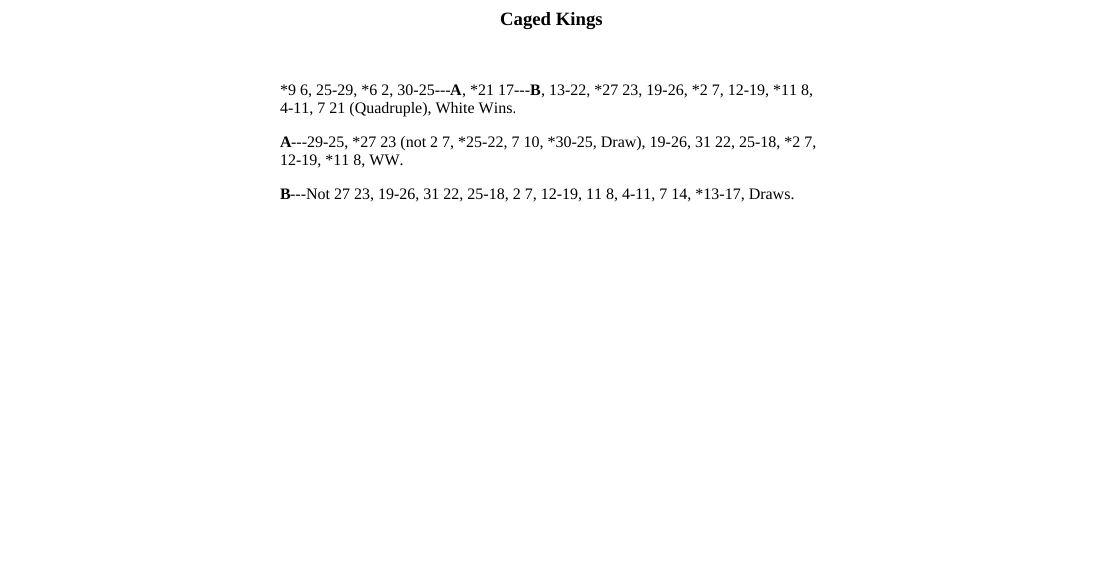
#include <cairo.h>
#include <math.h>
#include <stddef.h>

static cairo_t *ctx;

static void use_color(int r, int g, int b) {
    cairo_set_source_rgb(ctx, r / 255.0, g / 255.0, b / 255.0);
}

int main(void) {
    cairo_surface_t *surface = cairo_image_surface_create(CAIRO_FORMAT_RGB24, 1103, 575);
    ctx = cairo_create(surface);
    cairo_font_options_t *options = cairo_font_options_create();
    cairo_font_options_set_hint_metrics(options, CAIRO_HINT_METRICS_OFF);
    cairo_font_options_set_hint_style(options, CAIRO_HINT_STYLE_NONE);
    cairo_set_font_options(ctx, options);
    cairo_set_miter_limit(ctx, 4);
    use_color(255, 255, 255);
    cairo_paint(ctx);
    cairo_select_font_face(ctx, "Liberation Serif", CAIRO_FONT_SLANT_NORMAL, CAIRO_FONT_WEIGHT_BOLD);
    cairo_set_font_size(ctx, 18.75);
    use_color(0, 0, 0);
    cairo_move_to(ctx, 500, 25);
    cairo_show_text(ctx, "Caged Kings");
    cairo_select_font_face(ctx, "Liberation Serif", CAIRO_FONT_SLANT_NORMAL, CAIRO_FONT_WEIGHT_NORMAL);
    cairo_set_font_size(ctx, 16);
    cairo_move_to(ctx, 280, 95);
    cairo_show_text(ctx, "*9 6, 25-29, *6 2, 30-25---");
    cairo_select_font_face(ctx, "Liberation Serif", CAIRO_FONT_SLANT_NORMAL, CAIRO_FONT_WEIGHT_BOLD);
    cairo_move_to(ctx, 450, 95);
    cairo_show_text(ctx, "A");
    cairo_select_font_face(ctx, "Liberation Serif", CAIRO_FONT_SLANT_NORMAL, CAIRO_FONT_WEIGHT_NORMAL);
    cairo_move_to(ctx, 462, 95);
    cairo_show_text(ctx, ", *21 17---");
    cairo_select_font_face(ctx, "Liberation Serif", CAIRO_FONT_SLANT_NORMAL, CAIRO_FONT_WEIGHT_BOLD);
    cairo_move_to(ctx, 530, 95);
    cairo_show_text(ctx, "B");
    cairo_select_font_face(ctx, "Liberation Serif", CAIRO_FONT_SLANT_NORMAL, CAIRO_FONT_WEIGHT_NORMAL);
    cairo_move_to(ctx, 541, 95);
    cairo_show_text(ctx, ", 13-22, *27 23, 19-26, *2 7, 12-19, *11 8,");
    cairo_move_to(ctx, 280, 113);
    cairo_show_text(ctx, "4-11, 7 21 (Quadruple), White Wins.");
    cairo_select_font_face(ctx, "Liberation Serif", CAIRO_FONT_SLANT_NORMAL, CAIRO_FONT_WEIGHT_BOLD);
    cairo_move_to(ctx, 280, 147);
    cairo_show_text(ctx, "A");
    cairo_select_font_face(ctx, "Liberation Serif", CAIRO_FONT_SLANT_NORMAL, CAIRO_FONT_WEIGHT_NORMAL);
    cairo_move_to(ctx, 291, 147);
    cairo_show_text(ctx, "---29-25, *27 23 (not 2 7, *25-22, 7 10, *30-25, Draw), 19-26, 31 22, 25-18, *2 7,");
    cairo_move_to(ctx, 280, 165);
    cairo_show_text(ctx, "12-19, *11 8, WW.");
    cairo_select_font_face(ctx, "Liberation Serif", CAIRO_FONT_SLANT_NORMAL, CAIRO_FONT_WEIGHT_BOLD);
    cairo_move_to(ctx, 280, 199);
    cairo_show_text(ctx, "B");
    cairo_select_font_face(ctx, "Liberation Serif", CAIRO_FONT_SLANT_NORMAL, CAIRO_FONT_WEIGHT_NORMAL);
    cairo_move_to(ctx, 290, 199);
    cairo_show_text(ctx, "---Not 27 23, 19-26, 31 22, 25-18, 2 7, 12-19, 11 8, 4-11, 7 14, *13-17, Draws.");
    cairo_surface_write_to_png(surface, "result.png");
    cairo_font_options_destroy(options);
    cairo_destroy(ctx);
    cairo_surface_destroy(surface);
    return 0;
}
